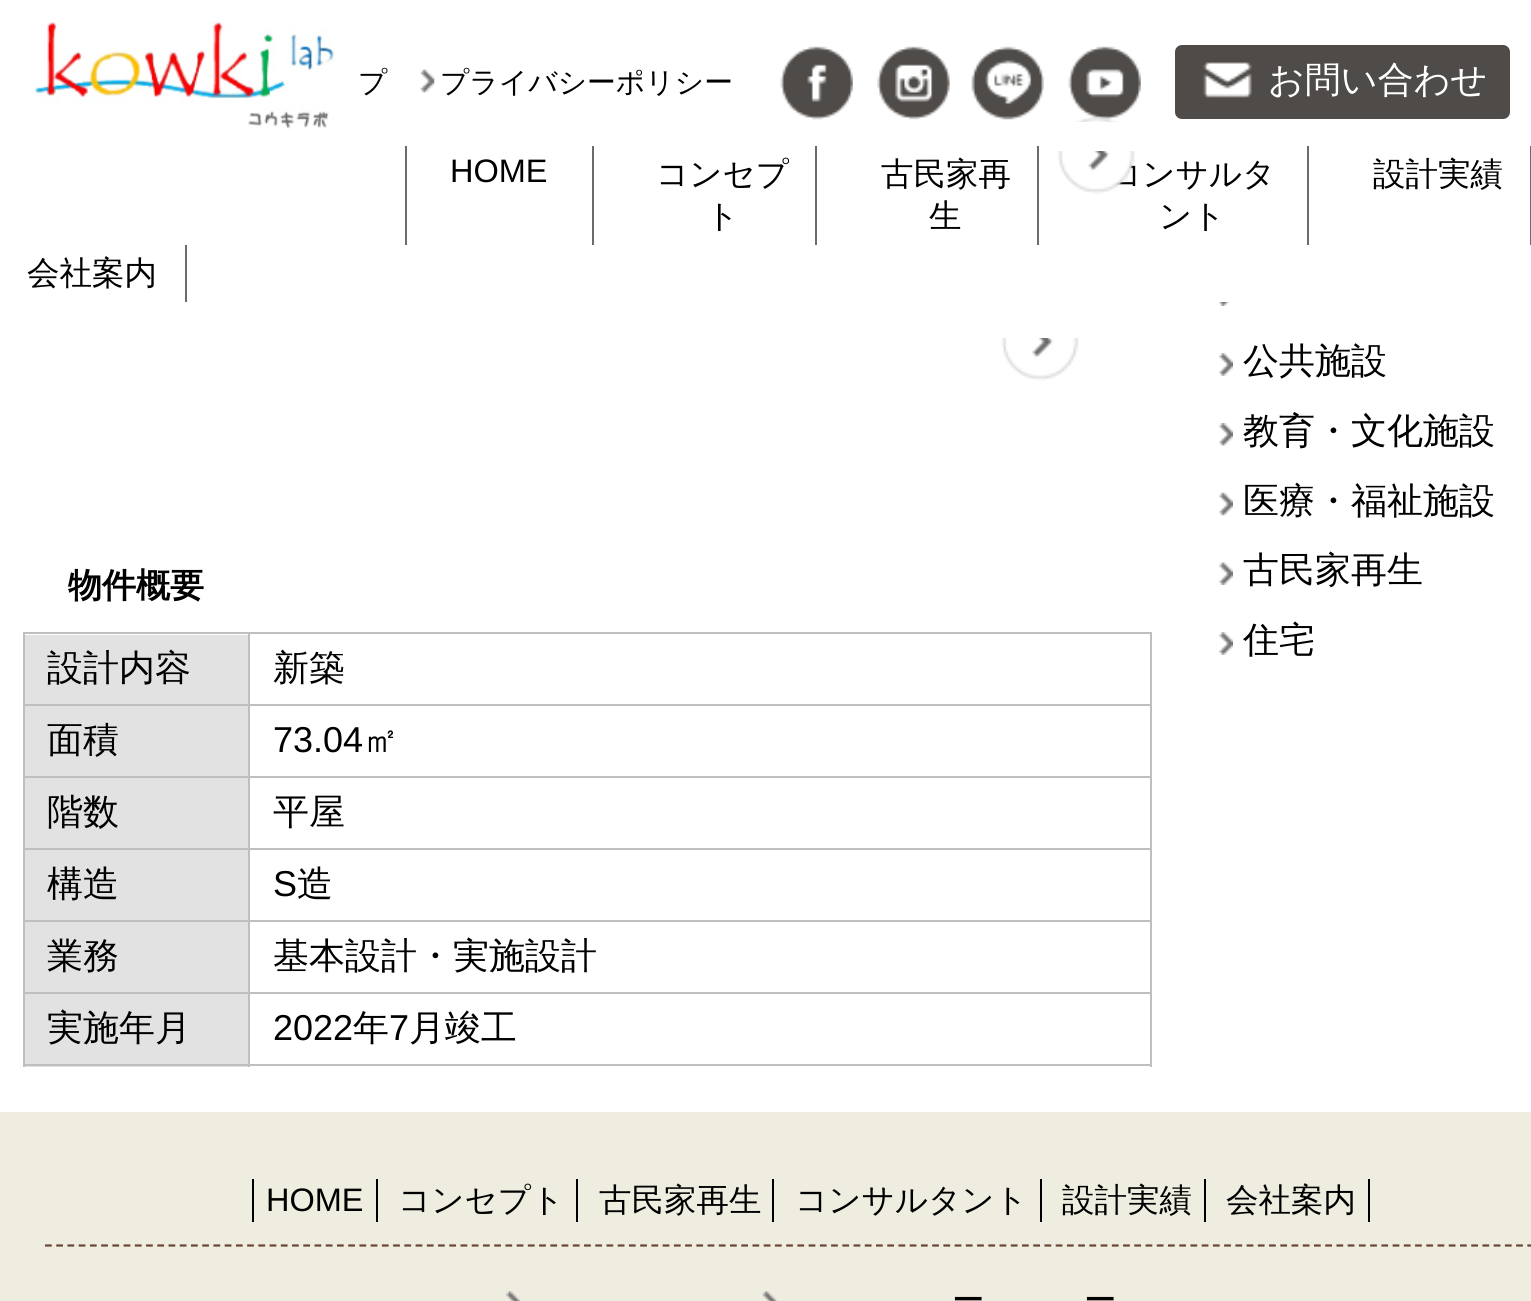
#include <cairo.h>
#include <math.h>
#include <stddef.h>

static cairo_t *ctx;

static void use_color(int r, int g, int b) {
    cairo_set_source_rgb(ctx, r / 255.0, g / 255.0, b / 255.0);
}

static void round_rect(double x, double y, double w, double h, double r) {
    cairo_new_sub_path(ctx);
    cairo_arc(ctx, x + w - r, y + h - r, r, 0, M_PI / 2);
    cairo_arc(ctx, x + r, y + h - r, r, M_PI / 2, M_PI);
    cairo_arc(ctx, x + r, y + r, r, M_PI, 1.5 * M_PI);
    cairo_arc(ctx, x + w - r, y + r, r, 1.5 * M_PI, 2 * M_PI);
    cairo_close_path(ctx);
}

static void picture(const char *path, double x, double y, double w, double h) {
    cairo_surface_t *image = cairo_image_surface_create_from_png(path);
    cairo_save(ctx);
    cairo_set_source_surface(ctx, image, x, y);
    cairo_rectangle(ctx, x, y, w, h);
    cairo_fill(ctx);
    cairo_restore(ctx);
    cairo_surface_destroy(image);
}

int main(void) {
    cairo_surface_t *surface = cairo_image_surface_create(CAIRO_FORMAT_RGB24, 1531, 1301);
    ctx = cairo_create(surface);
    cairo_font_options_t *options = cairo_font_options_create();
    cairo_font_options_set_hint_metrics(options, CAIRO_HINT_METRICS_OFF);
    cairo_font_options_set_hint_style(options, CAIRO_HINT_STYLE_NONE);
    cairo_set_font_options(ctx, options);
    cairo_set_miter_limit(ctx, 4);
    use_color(255, 255, 255);
    cairo_paint(ctx);
    cairo_select_font_face(ctx, "WenQuanYi Zen Hei Medium", CAIRO_FONT_SLANT_NORMAL, CAIRO_FONT_WEIGHT_NORMAL);
    cairo_set_font_size(ctx, 28.75);
    use_color(0, 0, 0);
    cairo_move_to(ctx, 358, 92);
    cairo_show_text(ctx, "プ");
    picture("img1.png", 420, 69, 15, 24);
    cairo_move_to(ctx, 440, 92);
    cairo_show_text(ctx, "プライバシーポリシー");
    picture("img2.png", 780, 46, 73, 74);
    picture("img3.png", 877, 46, 73, 74);
    picture("img4.png", 971, 46, 73, 74);
    picture("img5.png", 1068, 46, 73, 76);
    use_color(79, 75, 72);
    round_rect(1175, 45, 335, 74, 7);
    cairo_fill(ctx);
    picture("img6.png", 1203, 62, 49, 36);
    cairo_set_font_size(ctx, 36);
    use_color(255, 255, 255);
    cairo_move_to(ctx, 1268, 92);
    cairo_show_text(ctx, "お問い合わせ");
    picture("img7.png", 35, 22, 314, 107);
    use_color(107, 107, 107);
    cairo_rectangle(ctx, 592, 146, 2, 99);
    cairo_fill(ctx);
    cairo_rectangle(ctx, 405, 146, 2, 99);
    cairo_fill(ctx);
    cairo_select_font_face(ctx, "Liberation Sans", CAIRO_FONT_SLANT_NORMAL, CAIRO_FONT_WEIGHT_NORMAL);
    cairo_set_font_size(ctx, 32.5);
    use_color(0, 0, 0);
    cairo_move_to(ctx, 450, 182);
    cairo_show_text(ctx, "HOME");
    use_color(107, 107, 107);
    cairo_rectangle(ctx, 815, 146, 2, 99);
    cairo_fill(ctx);
    cairo_select_font_face(ctx, "WenQuanYi Zen Hei Medium", CAIRO_FONT_SLANT_NORMAL, CAIRO_FONT_WEIGHT_NORMAL);
    use_color(0, 0, 0);
    cairo_move_to(ctx, 656, 185);
    cairo_show_text(ctx, "コンセプ");
    cairo_move_to(ctx, 706, 227);
    cairo_show_text(ctx, "ト");
    use_color(107, 107, 107);
    cairo_rectangle(ctx, 1037, 146, 2, 99);
    cairo_fill(ctx);
    use_color(0, 0, 0);
    cairo_move_to(ctx, 881, 185);
    cairo_show_text(ctx, "古民家再");
    cairo_move_to(ctx, 929, 227);
    cairo_show_text(ctx, "生");
    use_color(107, 107, 107);
    cairo_rectangle(ctx, 1307, 146, 2, 99);
    cairo_fill(ctx);
    use_color(0, 0, 0);
    cairo_move_to(ctx, 1109, 185);
    cairo_show_text(ctx, "コンサルタ");
    cairo_move_to(ctx, 1159, 227);
    cairo_show_text(ctx, "ント");
    use_color(107, 107, 107);
    cairo_rectangle(ctx, 1530, 146, 1, 99);
    cairo_fill(ctx);
    use_color(0, 0, 0);
    cairo_move_to(ctx, 1373, 185);
    cairo_show_text(ctx, "設計実績");
    use_color(107, 107, 107);
    cairo_rectangle(ctx, 185, 245, 2, 57);
    cairo_fill(ctx);
    use_color(0, 0, 0);
    cairo_move_to(ctx, 27, 284);
    cairo_show_text(ctx, "会社案内");
    picture("img8.png", 1219, 302, 11, 4);
    picture("img9.png", 1219, 353, 14, 23);
    cairo_set_font_size(ctx, 36);
    cairo_move_to(ctx, 1243, 373);
    cairo_show_text(ctx, "公共施設");
    picture("img10.png", 1219, 423, 14, 23);
    cairo_move_to(ctx, 1243, 443);
    cairo_show_text(ctx, "教育・文化施設");
    picture("img11.png", 1219, 492, 14, 24);
    cairo_move_to(ctx, 1243, 513);
    cairo_show_text(ctx, "医療・福祉施設");
    picture("img12.png", 1219, 562, 14, 23);
    cairo_move_to(ctx, 1243, 582);
    cairo_show_text(ctx, "古民家再生");
    picture("img13.png", 1219, 632, 14, 23);
    cairo_move_to(ctx, 1243, 652);
    cairo_show_text(ctx, "住宅");
    picture("img14.png", 1057, 151, 78, 43);
    picture("img15.png", 1001, 338, 78, 43);
    cairo_select_font_face(ctx, "WenQuanYi Zen Hei", CAIRO_FONT_SLANT_NORMAL, CAIRO_FONT_WEIGHT_BOLD);
    cairo_set_font_size(ctx, 34);
    cairo_move_to(ctx, 68, 597);
    cairo_show_text(ctx, "物件概要");
    use_color(191, 191, 191);
    cairo_rectangle(ctx, 23, 632, 1129, 2);
    cairo_fill(ctx);
    cairo_rectangle(ctx, 1150, 632, 2, 435);
    cairo_fill(ctx);
    use_color(226, 226, 226);
    cairo_rectangle(ctx, 25, 635, 223, 432);
    cairo_fill(ctx);
    use_color(191, 191, 191);
    cairo_rectangle(ctx, 23, 1064, 1129, 2);
    cairo_fill(ctx);
    cairo_rectangle(ctx, 23, 632, 2, 435);
    cairo_fill(ctx);
    cairo_rectangle(ctx, 248, 992, 2, 75);
    cairo_fill(ctx);
    cairo_rectangle(ctx, 248, 992, 904, 2);
    cairo_fill(ctx);
    cairo_rectangle(ctx, 248, 920, 2, 75);
    cairo_fill(ctx);
    cairo_rectangle(ctx, 248, 920, 904, 2);
    cairo_fill(ctx);
    cairo_rectangle(ctx, 248, 848, 2, 75);
    cairo_fill(ctx);
    cairo_rectangle(ctx, 248, 848, 904, 2);
    cairo_fill(ctx);
    cairo_rectangle(ctx, 248, 776, 2, 75);
    cairo_fill(ctx);
    cairo_rectangle(ctx, 248, 776, 904, 2);
    cairo_fill(ctx);
    cairo_rectangle(ctx, 248, 704, 2, 75);
    cairo_fill(ctx);
    cairo_rectangle(ctx, 248, 704, 904, 2);
    cairo_fill(ctx);
    cairo_rectangle(ctx, 248, 632, 2, 75);
    cairo_fill(ctx);
    cairo_rectangle(ctx, 23, 704, 227, 2);
    cairo_fill(ctx);
    cairo_select_font_face(ctx, "WenQuanYi Zen Hei Medium", CAIRO_FONT_SLANT_NORMAL, CAIRO_FONT_WEIGHT_NORMAL);
    cairo_set_font_size(ctx, 36);
    use_color(0, 0, 0);
    cairo_move_to(ctx, 47, 680);
    cairo_show_text(ctx, "設計内容");
    cairo_move_to(ctx, 273, 680);
    cairo_show_text(ctx, "新築");
    use_color(191, 191, 191);
    cairo_rectangle(ctx, 23, 776, 227, 2);
    cairo_fill(ctx);
    use_color(0, 0, 0);
    cairo_move_to(ctx, 47, 752);
    cairo_show_text(ctx, "面積");
    cairo_select_font_face(ctx, "Liberation Sans", CAIRO_FONT_SLANT_NORMAL, CAIRO_FONT_WEIGHT_NORMAL);
    cairo_move_to(ctx, 273, 752);
    cairo_show_text(ctx, "73.04");
    cairo_select_font_face(ctx, "WenQuanYi Zen Hei Medium", CAIRO_FONT_SLANT_NORMAL, CAIRO_FONT_WEIGHT_NORMAL);
    cairo_move_to(ctx, 363, 752);
    cairo_show_text(ctx, "㎡");
    use_color(191, 191, 191);
    cairo_rectangle(ctx, 23, 848, 227, 2);
    cairo_fill(ctx);
    use_color(0, 0, 0);
    cairo_move_to(ctx, 47, 824);
    cairo_show_text(ctx, "階数");
    cairo_move_to(ctx, 273, 824);
    cairo_show_text(ctx, "平屋");
    use_color(191, 191, 191);
    cairo_rectangle(ctx, 23, 920, 227, 2);
    cairo_fill(ctx);
    use_color(0, 0, 0);
    cairo_move_to(ctx, 47, 896);
    cairo_show_text(ctx, "構造");
    cairo_select_font_face(ctx, "Liberation Sans", CAIRO_FONT_SLANT_NORMAL, CAIRO_FONT_WEIGHT_NORMAL);
    cairo_move_to(ctx, 273, 896);
    cairo_show_text(ctx, "S");
    cairo_select_font_face(ctx, "WenQuanYi Zen Hei Medium", CAIRO_FONT_SLANT_NORMAL, CAIRO_FONT_WEIGHT_NORMAL);
    cairo_move_to(ctx, 297, 896);
    cairo_show_text(ctx, "造");
    use_color(191, 191, 191);
    cairo_rectangle(ctx, 23, 992, 227, 2);
    cairo_fill(ctx);
    use_color(0, 0, 0);
    cairo_move_to(ctx, 47, 968);
    cairo_show_text(ctx, "業務");
    cairo_move_to(ctx, 273, 968);
    cairo_show_text(ctx, "基本設計・実施設計");
    cairo_move_to(ctx, 47, 1040);
    cairo_show_text(ctx, "実施年月");
    cairo_select_font_face(ctx, "Liberation Sans", CAIRO_FONT_SLANT_NORMAL, CAIRO_FONT_WEIGHT_NORMAL);
    cairo_move_to(ctx, 273, 1040);
    cairo_show_text(ctx, "2022");
    cairo_select_font_face(ctx, "WenQuanYi Zen Hei Medium", CAIRO_FONT_SLANT_NORMAL, CAIRO_FONT_WEIGHT_NORMAL);
    cairo_move_to(ctx, 353, 1040);
    cairo_show_text(ctx, "年");
    cairo_select_font_face(ctx, "Liberation Sans", CAIRO_FONT_SLANT_NORMAL, CAIRO_FONT_WEIGHT_NORMAL);
    cairo_move_to(ctx, 389, 1040);
    cairo_show_text(ctx, "7");
    cairo_select_font_face(ctx, "WenQuanYi Zen Hei Medium", CAIRO_FONT_SLANT_NORMAL, CAIRO_FONT_WEIGHT_NORMAL);
    cairo_move_to(ctx, 409, 1040);
    cairo_show_text(ctx, "月竣工");
    use_color(239, 237, 223);
    cairo_rectangle(ctx, 0, 1112, 1531, 189);
    cairo_fill(ctx);
    cairo_new_path(ctx);
    cairo_move_to(ctx, 45, 1245.5);
    cairo_line_to(ctx, 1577, 1245.5);
    use_color(104, 71, 54);
    cairo_set_line_width(ctx, 2.2);
    cairo_set_dash(ctx, (double[]){6.75, 4.48}, 2, 0);
    cairo_stroke(ctx);
    use_color(0, 0, 0);
    cairo_rectangle(ctx, 376, 1179, 2, 43);
    cairo_fill(ctx);
    cairo_rectangle(ctx, 252, 1179, 2, 43);
    cairo_fill(ctx);
    cairo_select_font_face(ctx, "Liberation Sans", CAIRO_FONT_SLANT_NORMAL, CAIRO_FONT_WEIGHT_NORMAL);
    cairo_set_font_size(ctx, 32.5);
    cairo_move_to(ctx, 266, 1211);
    cairo_show_text(ctx, "HOME");
    cairo_rectangle(ctx, 576, 1179, 2, 43);
    cairo_fill(ctx);
    cairo_select_font_face(ctx, "WenQuanYi Zen Hei Medium", CAIRO_FONT_SLANT_NORMAL, CAIRO_FONT_WEIGHT_NORMAL);
    cairo_move_to(ctx, 398, 1211);
    cairo_show_text(ctx, "コンセプト");
    cairo_rectangle(ctx, 772, 1179, 2, 43);
    cairo_fill(ctx);
    cairo_move_to(ctx, 599, 1211);
    cairo_show_text(ctx, "古民家再生");
    cairo_rectangle(ctx, 1040, 1179, 2, 43);
    cairo_fill(ctx);
    cairo_move_to(ctx, 795, 1211);
    cairo_show_text(ctx, "コンサルタント");
    cairo_rectangle(ctx, 1204, 1179, 2, 43);
    cairo_fill(ctx);
    cairo_move_to(ctx, 1062, 1211);
    cairo_show_text(ctx, "設計実績");
    cairo_rectangle(ctx, 1368, 1179, 2, 43);
    cairo_fill(ctx);
    cairo_move_to(ctx, 1226, 1211);
    cairo_show_text(ctx, "会社案内");
    picture("img16.png", 506, 1291, 14, 10);
    picture("img17.png", 762, 1291, 15, 10);
    cairo_move_to(ctx, 952, 1311);
    cairo_show_text(ctx, "ー");
    cairo_move_to(ctx, 1084, 1311);
    cairo_show_text(ctx, "ー");
    cairo_surface_write_to_png(surface, "result.png");
    cairo_font_options_destroy(options);
    cairo_destroy(ctx);
    cairo_surface_destroy(surface);
    return 0;
}
